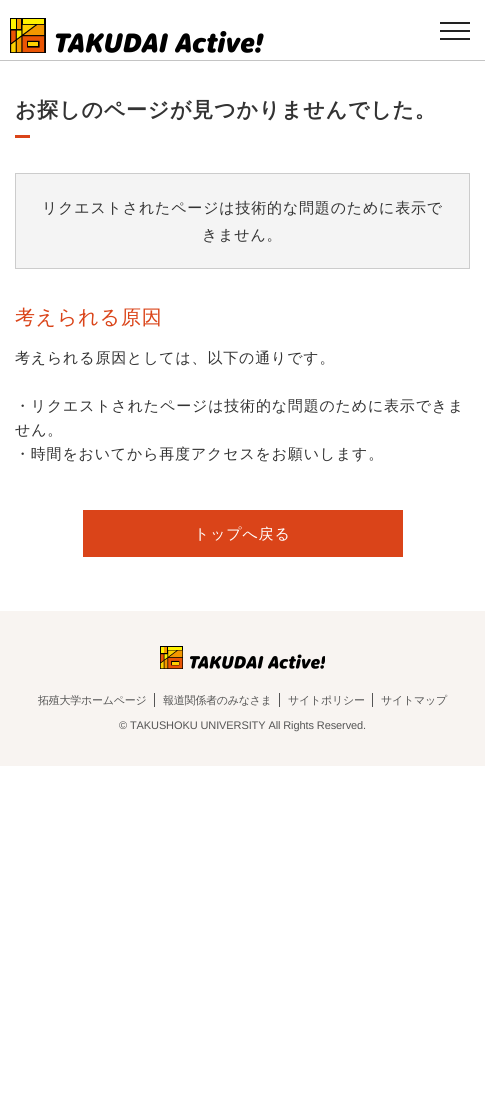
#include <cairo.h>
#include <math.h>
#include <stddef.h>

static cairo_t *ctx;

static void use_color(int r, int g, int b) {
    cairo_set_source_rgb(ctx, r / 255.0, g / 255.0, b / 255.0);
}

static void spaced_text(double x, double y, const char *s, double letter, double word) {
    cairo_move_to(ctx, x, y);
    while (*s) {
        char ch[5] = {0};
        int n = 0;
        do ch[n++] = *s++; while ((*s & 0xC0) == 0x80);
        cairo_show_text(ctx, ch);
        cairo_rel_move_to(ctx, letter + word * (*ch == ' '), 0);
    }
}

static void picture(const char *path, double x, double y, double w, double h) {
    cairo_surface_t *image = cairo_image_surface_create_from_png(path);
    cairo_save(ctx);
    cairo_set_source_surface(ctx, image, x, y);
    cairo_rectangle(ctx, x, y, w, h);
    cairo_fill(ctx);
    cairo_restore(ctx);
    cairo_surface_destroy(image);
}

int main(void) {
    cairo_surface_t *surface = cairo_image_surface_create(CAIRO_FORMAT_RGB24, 485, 1116);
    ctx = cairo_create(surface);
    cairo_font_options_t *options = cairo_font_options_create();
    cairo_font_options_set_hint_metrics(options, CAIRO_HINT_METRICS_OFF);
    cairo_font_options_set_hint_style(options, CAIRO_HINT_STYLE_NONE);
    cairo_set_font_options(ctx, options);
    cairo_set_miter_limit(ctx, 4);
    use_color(255, 255, 255);
    cairo_paint(ctx);
    picture("img1.png", 10, 18, 254, 35);
    use_color(34, 34, 34);
    cairo_rectangle(ctx, 440, 30, 30, 2);
    cairo_fill(ctx);
    cairo_rectangle(ctx, 440, 22, 30, 2);
    cairo_fill(ctx);
    cairo_rectangle(ctx, 440, 38, 30, 2);
    cairo_fill(ctx);
    use_color(196, 196, 196);
    cairo_rectangle(ctx, 0, 60, 485, 1);
    cairo_fill(ctx);
    cairo_select_font_face(ctx, "WenQuanYi Zen Hei", CAIRO_FONT_SLANT_NORMAL, CAIRO_FONT_WEIGHT_BOLD);
    cairo_set_font_size(ctx, 21);
    use_color(51, 51, 51);
    spaced_text(15, 117, "お探しのページが見つかりませんでした。", 0.8, 0);
    use_color(218, 68, 25);
    cairo_rectangle(ctx, 15, 135, 15, 3);
    cairo_fill(ctx);
    use_color(244, 244, 244);
    cairo_rectangle(ctx, 15.5, 173.5, 454, 95);
    cairo_fill_preserve(ctx);
    use_color(204, 204, 204);
    cairo_set_line_width(ctx, 1);
    cairo_stroke(ctx);
    cairo_select_font_face(ctx, "WenQuanYi Zen Hei Medium", CAIRO_FONT_SLANT_NORMAL, CAIRO_FONT_WEIGHT_NORMAL);
    cairo_set_font_size(ctx, 15);
    use_color(51, 51, 51);
    spaced_text(42, 213, "リクエストされたページは技術的な問題のために表示で", 0.8, 0);
    spaced_text(202, 240, "きません。", 0.8, 0);
    cairo_set_font_size(ctx, 20);
    use_color(218, 68, 25);
    spaced_text(15, 324, "考えられる原因", 0.8, 0);
    cairo_set_font_size(ctx, 15);
    use_color(51, 51, 51);
    spaced_text(15, 363, "考えられる原因としては、以下の通りです。", 0.8, 0);
    spaced_text(15, 411, "・リクエストされたページは技術的な問題のために表示できま", 0.8, 0);
    spaced_text(15, 435, "せん。", 0.8, 0);
    spaced_text(15, 459, "・時間をおいてから再度アクセスをお願いします。", 0.8, 0);
    use_color(218, 68, 25);
    cairo_rectangle(ctx, 83, 510, 320, 47);
    cairo_fill(ctx);
    use_color(255, 255, 255);
    spaced_text(194, 539, "トップへ戻る", 0.8, 0);
    use_color(248, 244, 241);
    cairo_rectangle(ctx, 0, 611, 485, 155);
    cairo_fill(ctx);
    picture("img2.png", 160, 646, 165, 23);
    cairo_set_font_size(ctx, 11);
    use_color(85, 85, 85);
    spaced_text(38, 704, "拓殖大学ホームページ", -0.25, 0);
    cairo_rectangle(ctx, 154, 693, 1, 14);
    cairo_fill(ctx);
    spaced_text(163, 704, "報道関係者のみなさま", -0.25, 0);
    cairo_rectangle(ctx, 279, 693, 1, 14);
    cairo_fill(ctx);
    spaced_text(288, 704, "サイトポリシー", -0.25, 0);
    cairo_rectangle(ctx, 372, 693, 1, 14);
    cairo_fill(ctx);
    spaced_text(381, 704, "サイトマップ", -0.25, 0);
    cairo_select_font_face(ctx, "Liberation Sans", CAIRO_FONT_SLANT_NORMAL, CAIRO_FONT_WEIGHT_NORMAL);
    spaced_text(119, 729, "© TAKUSHOKU UNIVERSITY All Rights Reserved.", -0.1, 0);
    cairo_surface_write_to_png(surface, "result.png");
    cairo_font_options_destroy(options);
    cairo_destroy(ctx);
    cairo_surface_destroy(surface);
    return 0;
}
